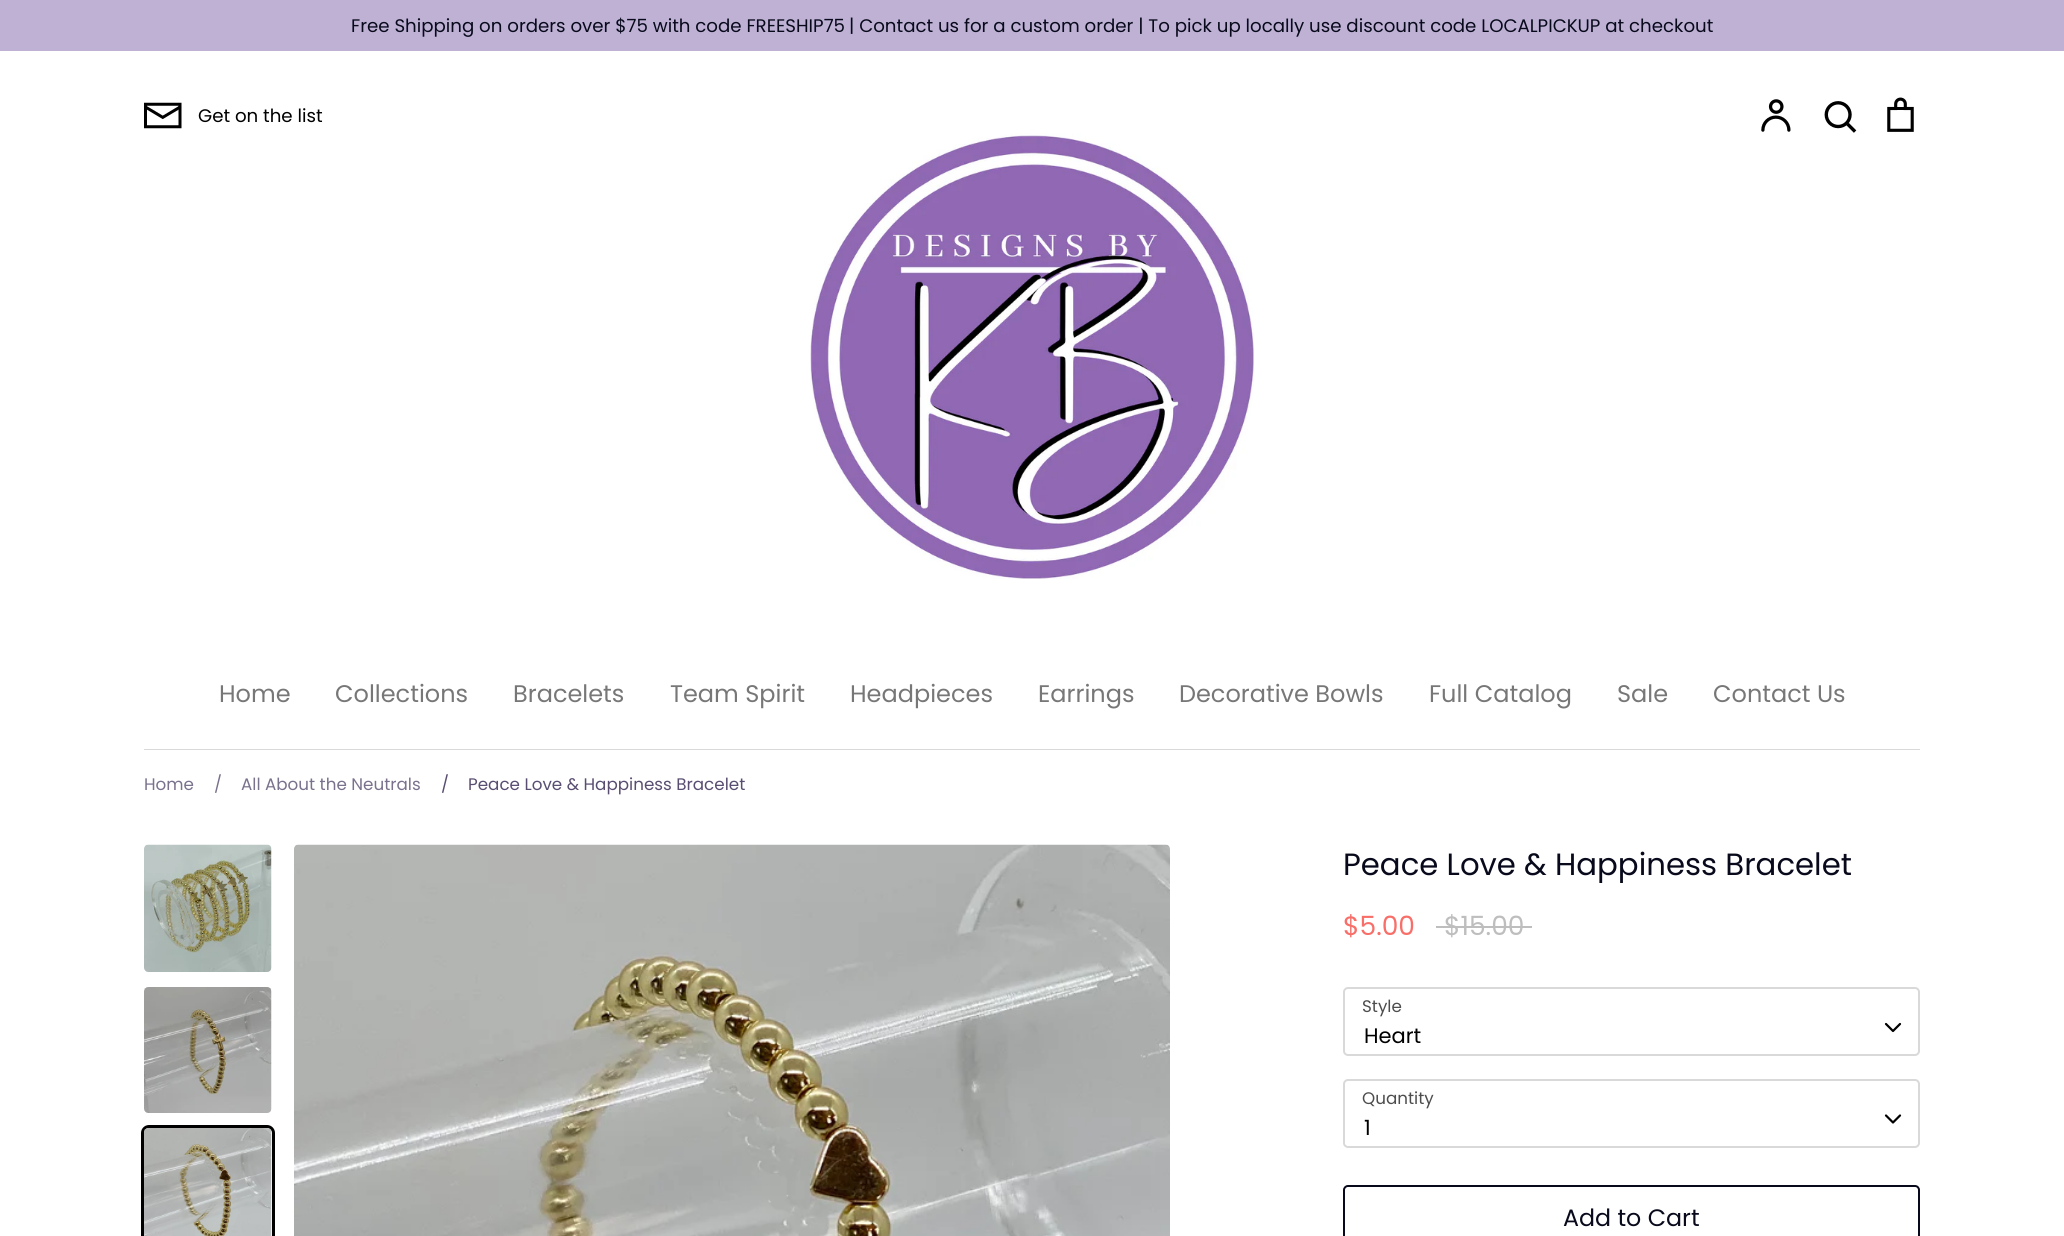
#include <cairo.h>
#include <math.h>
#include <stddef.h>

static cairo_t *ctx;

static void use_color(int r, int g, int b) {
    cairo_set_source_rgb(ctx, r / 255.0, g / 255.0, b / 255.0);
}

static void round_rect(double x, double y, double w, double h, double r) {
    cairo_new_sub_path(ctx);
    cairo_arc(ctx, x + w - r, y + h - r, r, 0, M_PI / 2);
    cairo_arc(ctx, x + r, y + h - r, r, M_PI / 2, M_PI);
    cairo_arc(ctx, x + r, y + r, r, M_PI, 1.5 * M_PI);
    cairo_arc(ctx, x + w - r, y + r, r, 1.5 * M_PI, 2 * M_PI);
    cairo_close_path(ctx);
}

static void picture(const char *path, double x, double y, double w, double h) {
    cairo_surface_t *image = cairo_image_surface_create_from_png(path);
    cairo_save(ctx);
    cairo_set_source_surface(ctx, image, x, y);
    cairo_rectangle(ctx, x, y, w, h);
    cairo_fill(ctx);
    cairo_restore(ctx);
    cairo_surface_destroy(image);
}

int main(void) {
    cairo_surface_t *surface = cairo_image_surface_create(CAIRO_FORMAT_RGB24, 2064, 1236);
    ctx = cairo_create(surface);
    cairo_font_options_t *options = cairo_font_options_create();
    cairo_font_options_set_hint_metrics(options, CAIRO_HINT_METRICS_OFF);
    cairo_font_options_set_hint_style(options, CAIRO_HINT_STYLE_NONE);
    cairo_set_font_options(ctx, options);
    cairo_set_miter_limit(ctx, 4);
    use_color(255, 255, 255);
    cairo_paint(ctx);
    use_color(190, 177, 212);
    cairo_rectangle(ctx, 0, 0, 2064, 51);
    cairo_fill(ctx);
    cairo_select_font_face(ctx, "Poppins", CAIRO_FONT_SLANT_NORMAL, CAIRO_FONT_WEIGHT_NORMAL);
    cairo_set_font_size(ctx, 18.2);
    use_color(8, 10, 28);
    cairo_move_to(ctx, 351, 32);
    cairo_show_text(ctx, "Free Shipping on orders over $75 with code FREESHIP75");
    cairo_move_to(ctx, 849, 32);
    cairo_show_text(ctx, "| Contact us for a custom order | To pick up locally use discount code LOCALPICKUP at checkout");
    picture("img1.png", 144, 102, 38, 27);
    use_color(0, 0, 0);
    cairo_move_to(ctx, 198, 122);
    cairo_show_text(ctx, "Get on the list");
    picture("img2.png", 1761, 99, 30, 33);
    picture("img3.png", 1824, 101, 33, 32);
    picture("img4.png", 1887, 97, 27, 35);
    picture("img5.png", 810, 133, 444, 446);
    use_color(217, 217, 217);
    cairo_rectangle(ctx, 144, 749, 1776, 1);
    cairo_fill(ctx);
    cairo_set_font_size(ctx, 24);
    use_color(119, 119, 119);
    cairo_move_to(ctx, 219, 702);
    cairo_show_text(ctx, "Home");
    cairo_move_to(ctx, 335, 702);
    cairo_show_text(ctx, "Collections");
    cairo_move_to(ctx, 513, 702);
    cairo_show_text(ctx, "Bracelets");
    cairo_move_to(ctx, 670, 702);
    cairo_show_text(ctx, "Team Spirit");
    cairo_move_to(ctx, 850, 702);
    cairo_show_text(ctx, "Headpieces");
    cairo_move_to(ctx, 1038, 702);
    cairo_show_text(ctx, "Earrings");
    cairo_move_to(ctx, 1179, 702);
    cairo_show_text(ctx, "Decorative Bowls");
    cairo_move_to(ctx, 1429, 702);
    cairo_show_text(ctx, "Full Catalog");
    cairo_move_to(ctx, 1617, 702);
    cairo_show_text(ctx, "Sale");
    cairo_move_to(ctx, 1713, 702);
    cairo_show_text(ctx, "Contact Us");
    cairo_set_font_size(ctx, 16.75);
    use_color(122, 113, 141);
    cairo_move_to(ctx, 144, 790);
    cairo_show_text(ctx, "Home");
    cairo_move_to(ctx, 214, 790);
    cairo_show_text(ctx, "/");
    cairo_move_to(ctx, 241, 790);
    cairo_show_text(ctx, "All About the Neutrals");
    use_color(89, 77, 113);
    cairo_move_to(ctx, 441, 790);
    cairo_show_text(ctx, "/");
    cairo_move_to(ctx, 468, 790);
    cairo_show_text(ctx, "Peace Love & Happiness Bracelet");
    picture("img6.png", 144, 844, 128, 128);
    picture("img7.png", 144, 987, 128, 126);
    round_rect(142.5, 1126.5, 131, 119, 6.5);
    use_color(0, 0, 0);
    cairo_set_line_width(ctx, 3);
    cairo_stroke(ctx);
    picture("img8.png", 144, 1128, 128, 108);
    picture("img9.png", 294, 844, 876, 392);
    cairo_set_font_size(ctx, 30.75);
    use_color(8, 10, 28);
    cairo_move_to(ctx, 1343, 875);
    cairo_show_text(ctx, "Peace Love & Happiness Bracelet");
    cairo_set_font_size(ctx, 26.5);
    use_color(248, 111, 105);
    cairo_move_to(ctx, 1343, 935);
    cairo_show_text(ctx, "$5.00");
    use_color(190, 190, 190);
    cairo_move_to(ctx, 1444, 935);
    cairo_show_text(ctx, "$15.00");
    cairo_rectangle(ctx, 1436, 926, 96, 2);
    cairo_fill(ctx);
    cairo_set_font_size(ctx, 16.75);
    use_color(77, 77, 77);
    cairo_move_to(ctx, 1362, 1012);
    cairo_show_text(ctx, "Style");
    round_rect(1344, 988, 575, 67, 4);
    use_color(217, 217, 217);
    cairo_set_line_width(ctx, 2);
    cairo_stroke(ctx);
    cairo_set_font_size(ctx, 21);
    use_color(0, 0, 0);
    cairo_move_to(ctx, 1364, 1043);
    cairo_show_text(ctx, "Heart");
    cairo_new_path(ctx);
    cairo_move_to(ctx, 1886, 1024);
    cairo_line_to(ctx, 1893, 1031);
    cairo_line_to(ctx, 1900, 1024);
    cairo_set_line_width(ctx, 2.2);
    cairo_set_line_cap(ctx, CAIRO_LINE_CAP_ROUND);
    cairo_set_line_join(ctx, CAIRO_LINE_JOIN_ROUND);
    cairo_stroke(ctx);
    cairo_set_font_size(ctx, 16.75);
    use_color(77, 77, 77);
    cairo_move_to(ctx, 1362, 1104);
    cairo_show_text(ctx, "Quantity");
    round_rect(1344, 1080, 575, 67, 4);
    use_color(217, 217, 217);
    cairo_set_line_width(ctx, 2);
    cairo_set_line_cap(ctx, CAIRO_LINE_CAP_BUTT);
    cairo_set_line_join(ctx, CAIRO_LINE_JOIN_MITER);
    cairo_stroke(ctx);
    cairo_set_font_size(ctx, 21);
    use_color(0, 0, 0);
    cairo_move_to(ctx, 1364, 1135);
    cairo_show_text(ctx, "1");
    cairo_new_path(ctx);
    cairo_move_to(ctx, 1886, 1115.5);
    cairo_line_to(ctx, 1893, 1122.5);
    cairo_line_to(ctx, 1900, 1115.5);
    cairo_set_line_width(ctx, 2.2);
    cairo_set_line_cap(ctx, CAIRO_LINE_CAP_ROUND);
    cairo_set_line_join(ctx, CAIRO_LINE_JOIN_ROUND);
    cairo_stroke(ctx);
    round_rect(1344, 1186, 575, 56, 4);
    use_color(8, 10, 28);
    cairo_set_line_width(ctx, 2);
    cairo_set_line_cap(ctx, CAIRO_LINE_CAP_BUTT);
    cairo_set_line_join(ctx, CAIRO_LINE_JOIN_MITER);
    cairo_stroke(ctx);
    cairo_set_font_size(ctx, 23.75);
    cairo_move_to(ctx, 1563, 1226);
    cairo_show_text(ctx, "Add to Cart");
    cairo_surface_write_to_png(surface, "result.png");
    cairo_font_options_destroy(options);
    cairo_destroy(ctx);
    cairo_surface_destroy(surface);
    return 0;
}
